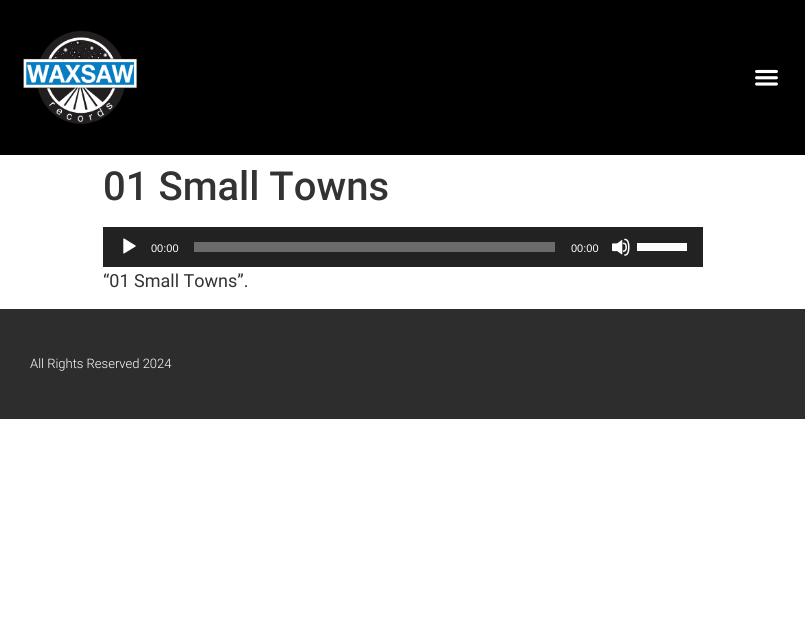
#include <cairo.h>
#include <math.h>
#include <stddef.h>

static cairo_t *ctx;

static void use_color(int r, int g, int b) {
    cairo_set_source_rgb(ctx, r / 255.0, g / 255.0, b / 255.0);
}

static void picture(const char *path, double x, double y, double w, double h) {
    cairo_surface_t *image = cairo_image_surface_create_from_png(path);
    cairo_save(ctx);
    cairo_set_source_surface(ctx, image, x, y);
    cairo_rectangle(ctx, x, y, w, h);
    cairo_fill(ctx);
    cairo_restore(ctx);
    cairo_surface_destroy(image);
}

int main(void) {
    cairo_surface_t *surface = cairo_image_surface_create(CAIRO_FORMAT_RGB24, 805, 621);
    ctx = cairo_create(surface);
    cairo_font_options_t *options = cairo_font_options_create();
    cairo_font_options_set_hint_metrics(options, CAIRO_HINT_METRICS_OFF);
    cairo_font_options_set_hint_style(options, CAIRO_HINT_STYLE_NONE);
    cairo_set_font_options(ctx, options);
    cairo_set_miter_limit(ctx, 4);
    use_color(255, 255, 255);
    cairo_paint(ctx);
    use_color(0, 0, 0);
    cairo_rectangle(ctx, 0, 0, 805, 155);
    cairo_fill(ctx);
    picture("img1.png", 23, 30, 115, 94);
    picture("img2.png", 755, 69, 23, 17);
    cairo_select_font_face(ctx, "Roboto Medium", CAIRO_FONT_SLANT_NORMAL, CAIRO_FONT_WEIGHT_NORMAL);
    cairo_set_font_size(ctx, 40);
    use_color(51, 51, 51);
    cairo_move_to(ctx, 103, 200);
    cairo_show_text(ctx, "01 Small Towns");
    use_color(34, 34, 34);
    cairo_rectangle(ctx, 103, 227, 600, 40);
    cairo_fill(ctx);
    picture("img3.png", 123, 238, 13, 16);
    cairo_select_font_face(ctx, "Liberation Sans", CAIRO_FONT_SLANT_NORMAL, CAIRO_FONT_WEIGHT_NORMAL);
    cairo_set_font_size(ctx, 11);
    use_color(255, 255, 255);
    cairo_move_to(ctx, 151, 252);
    cairo_show_text(ctx, "00:00");
    use_color(107, 107, 107);
    cairo_rectangle(ctx, 194, 242, 361, 10);
    cairo_fill(ctx);
    use_color(255, 255, 255);
    cairo_move_to(ctx, 571, 252);
    cairo_show_text(ctx, "00:00");
    picture("img4.png", 612, 238, 18, 18);
    cairo_rectangle(ctx, 637, 243, 50, 8);
    cairo_fill(ctx);
    cairo_select_font_face(ctx, "Roboto", CAIRO_FONT_SLANT_NORMAL, CAIRO_FONT_WEIGHT_NORMAL);
    cairo_set_font_size(ctx, 18);
    use_color(51, 51, 51);
    cairo_move_to(ctx, 103, 287);
    cairo_show_text(ctx, "“01 Small Towns”.");
    use_color(45, 45, 45);
    cairo_rectangle(ctx, 0, 309, 805, 110);
    cairo_fill(ctx);
    cairo_select_font_face(ctx, "Roboto Light", CAIRO_FONT_SLANT_NORMAL, CAIRO_FONT_WEIGHT_NORMAL);
    cairo_set_font_size(ctx, 13);
    use_color(255, 255, 255);
    cairo_move_to(ctx, 30, 368);
    cairo_show_text(ctx, "All Rights Reserved 2024");
    cairo_surface_write_to_png(surface, "result.png");
    cairo_font_options_destroy(options);
    cairo_destroy(ctx);
    cairo_surface_destroy(surface);
    return 0;
}
